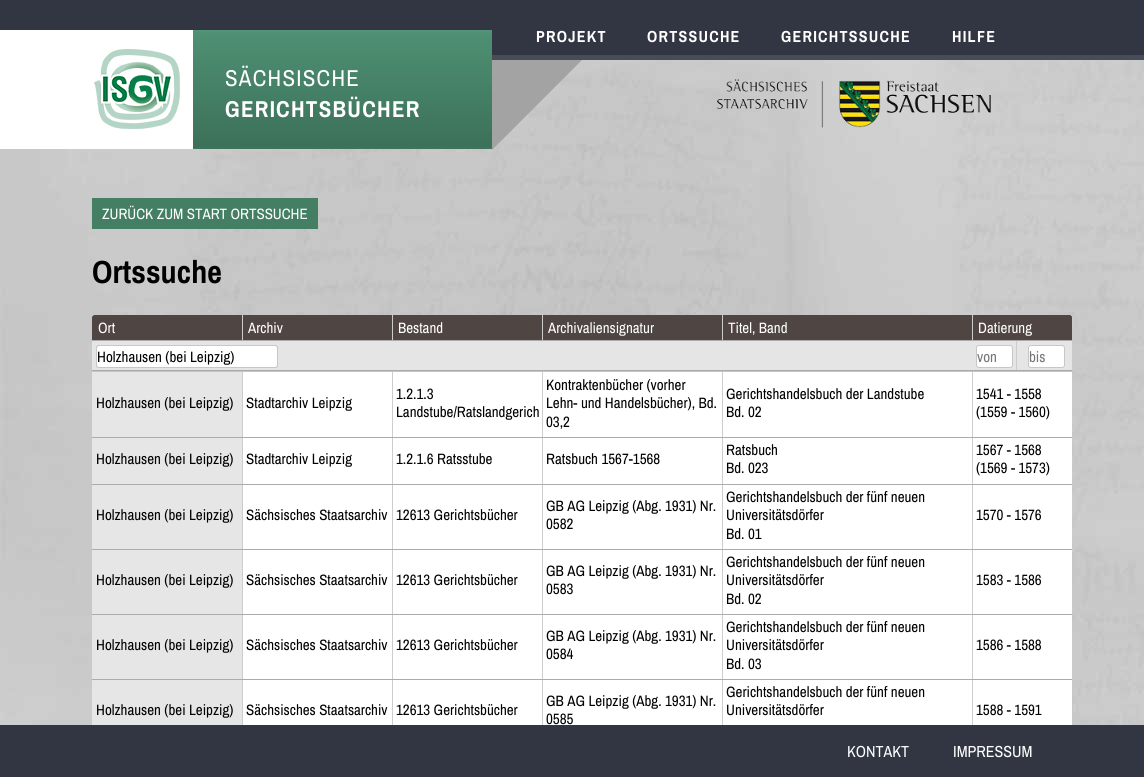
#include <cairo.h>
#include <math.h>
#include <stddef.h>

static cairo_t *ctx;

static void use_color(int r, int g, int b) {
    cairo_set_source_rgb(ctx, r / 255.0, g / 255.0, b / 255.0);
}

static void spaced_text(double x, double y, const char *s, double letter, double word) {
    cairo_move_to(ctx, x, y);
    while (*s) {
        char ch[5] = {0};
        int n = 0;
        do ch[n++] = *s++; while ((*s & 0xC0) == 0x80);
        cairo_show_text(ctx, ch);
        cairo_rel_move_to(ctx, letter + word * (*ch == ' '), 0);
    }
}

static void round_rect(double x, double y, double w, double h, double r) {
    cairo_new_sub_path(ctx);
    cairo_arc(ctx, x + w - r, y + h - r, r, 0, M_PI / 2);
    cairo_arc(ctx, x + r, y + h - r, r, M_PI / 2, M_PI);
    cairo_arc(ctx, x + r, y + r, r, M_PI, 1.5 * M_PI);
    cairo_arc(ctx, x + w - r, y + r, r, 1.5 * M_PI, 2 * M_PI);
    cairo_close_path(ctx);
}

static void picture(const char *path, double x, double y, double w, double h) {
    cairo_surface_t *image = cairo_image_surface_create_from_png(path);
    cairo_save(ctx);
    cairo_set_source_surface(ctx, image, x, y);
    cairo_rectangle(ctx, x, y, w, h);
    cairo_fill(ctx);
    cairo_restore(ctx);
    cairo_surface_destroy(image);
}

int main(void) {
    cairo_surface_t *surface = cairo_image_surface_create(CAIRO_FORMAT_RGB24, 1144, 777);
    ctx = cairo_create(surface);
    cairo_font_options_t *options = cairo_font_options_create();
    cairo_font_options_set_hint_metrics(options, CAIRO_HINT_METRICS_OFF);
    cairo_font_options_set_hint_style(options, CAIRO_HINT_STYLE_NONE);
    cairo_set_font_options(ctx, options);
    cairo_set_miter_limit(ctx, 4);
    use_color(255, 255, 255);
    cairo_paint(ctx);
    picture("img1.png", 0, 60, 1144, 665);
    use_color(50, 54, 66);
    cairo_rectangle(ctx, 0, 0, 1144, 55);
    cairo_fill(ctx);
    use_color(70, 76, 88);
    cairo_rectangle(ctx, 492, 55, 652, 5);
    cairo_fill(ctx);
    use_color(255, 255, 255);
    cairo_rectangle(ctx, 0, 30, 193, 119);
    cairo_fill(ctx);
    cairo_select_font_face(ctx, "Archivo Narrow", CAIRO_FONT_SLANT_NORMAL, CAIRO_FONT_WEIGHT_BOLD);
    cairo_set_font_size(ctx, 16);
    spaced_text(536, 42, "PROJEKT", 1.25, 0);
    spaced_text(647, 42, "ORTSSUCHE", 1.25, 0);
    spaced_text(781, 42, "GERICHTSSUCHE", 1.25, 0);
    spaced_text(952, 42, "HILFE", 1.25, 0);
    picture("img2.png", 717, 79, 274, 49);
    picture("img3.png", 94, 49, 86, 80);
    picture("img4.png", 193, 30, 299, 119);
    cairo_select_font_face(ctx, "Archivo Narrow", CAIRO_FONT_SLANT_NORMAL, CAIRO_FONT_WEIGHT_NORMAL);
    cairo_set_font_size(ctx, 23);
    spaced_text(225, 86, "SÄCHSISCHE", 1.25, 0);
    picture("img5.png", 492, 60, 90, 90);
    cairo_select_font_face(ctx, "Archivo Narrow", CAIRO_FONT_SLANT_NORMAL, CAIRO_FONT_WEIGHT_BOLD);
    spaced_text(225, 117, "GERICHTSBÜCHER", 1.25, 0);
    use_color(68, 127, 100);
    cairo_rectangle(ctx, 92, 198, 226, 31);
    cairo_fill(ctx);
    cairo_select_font_face(ctx, "Archivo Narrow", CAIRO_FONT_SLANT_NORMAL, CAIRO_FONT_WEIGHT_NORMAL);
    cairo_set_font_size(ctx, 15);
    use_color(255, 255, 255);
    cairo_move_to(ctx, 102, 219);
    cairo_show_text(ctx, "ZURÜCK ZUM START ORTSSUCHE");
    cairo_select_font_face(ctx, "Archivo Narrow", CAIRO_FONT_SLANT_NORMAL, CAIRO_FONT_WEIGHT_BOLD);
    cairo_set_font_size(ctx, 32);
    use_color(0, 0, 0);
    cairo_move_to(ctx, 92, 283);
    cairo_show_text(ctx, "Ortssuche");
    use_color(255, 255, 255);
    round_rect(92, 315, 980, 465, 3);
    cairo_fill(ctx);
    use_color(79, 69, 66);
    cairo_new_path(ctx);
    cairo_move_to(ctx, 95, 315);
    cairo_line_to(ctx, 1069, 315);
    cairo_curve_to(ctx, 1070.5, 315, 1072, 316.5, 1072, 318);
    cairo_line_to(ctx, 1072, 371);
    cairo_line_to(ctx, 92, 371);
    cairo_line_to(ctx, 92, 318);
    cairo_curve_to(ctx, 92, 316.5, 93.5, 315, 95, 315);
    cairo_close_path(ctx);
    cairo_fill(ctx);
    use_color(197, 197, 197);
    cairo_rectangle(ctx, 92, 371, 980, 1);
    cairo_fill(ctx);
    use_color(79, 69, 66);
    cairo_new_path(ctx);
    cairo_move_to(ctx, 95, 315);
    cairo_line_to(ctx, 242, 315);
    cairo_line_to(ctx, 242, 340);
    cairo_line_to(ctx, 92, 340);
    cairo_line_to(ctx, 92, 318);
    cairo_curve_to(ctx, 92, 316.5, 93.5, 315, 95, 315);
    cairo_close_path(ctx);
    cairo_fill(ctx);
    use_color(204, 204, 204);
    cairo_rectangle(ctx, 242, 315, 1, 25);
    cairo_fill(ctx);
    cairo_select_font_face(ctx, "Archivo Narrow", CAIRO_FONT_SLANT_NORMAL, CAIRO_FONT_WEIGHT_NORMAL);
    cairo_set_font_size(ctx, 15);
    use_color(255, 255, 255);
    cairo_move_to(ctx, 98, 333);
    cairo_show_text(ctx, "Ort");
    use_color(204, 204, 204);
    cairo_rectangle(ctx, 392, 315, 1, 25);
    cairo_fill(ctx);
    use_color(255, 255, 255);
    cairo_move_to(ctx, 248, 333);
    cairo_show_text(ctx, "Archiv");
    use_color(204, 204, 204);
    cairo_rectangle(ctx, 542, 315, 1, 25);
    cairo_fill(ctx);
    use_color(255, 255, 255);
    cairo_move_to(ctx, 398, 333);
    cairo_show_text(ctx, "Bestand");
    use_color(204, 204, 204);
    cairo_rectangle(ctx, 722, 315, 1, 25);
    cairo_fill(ctx);
    use_color(255, 255, 255);
    cairo_move_to(ctx, 548, 333);
    cairo_show_text(ctx, "Archivaliensignatur");
    use_color(79, 69, 66);
    cairo_new_path(ctx);
    cairo_move_to(ctx, 972, 315);
    cairo_line_to(ctx, 1069, 315);
    cairo_curve_to(ctx, 1070.5, 315, 1072, 316.5, 1072, 318);
    cairo_line_to(ctx, 1072, 340);
    cairo_line_to(ctx, 972, 340);
    cairo_close_path(ctx);
    cairo_fill(ctx);
    use_color(204, 204, 204);
    cairo_rectangle(ctx, 972, 315, 1, 25);
    cairo_fill(ctx);
    use_color(255, 255, 255);
    cairo_move_to(ctx, 728, 333);
    cairo_show_text(ctx, "Titel, Band");
    cairo_move_to(ctx, 978, 333);
    cairo_show_text(ctx, "Datierung");
    use_color(79, 69, 66);
    cairo_new_path(ctx);
    cairo_move_to(ctx, 1056, 315);
    cairo_line_to(ctx, 1069, 315);
    cairo_curve_to(ctx, 1070.5, 315, 1072, 316.5, 1072, 318);
    cairo_line_to(ctx, 1072, 340);
    cairo_line_to(ctx, 1056, 340);
    cairo_close_path(ctx);
    cairo_fill(ctx);
    use_color(229, 229, 229);
    cairo_rectangle(ctx, 92, 341, 980, 29);
    cairo_fill(ctx);
    use_color(170, 170, 170);
    cairo_rectangle(ctx, 92, 340, 980, 1);
    cairo_fill(ctx);
    cairo_rectangle(ctx, 92, 370, 980, 1);
    cairo_fill(ctx);
    round_rect(96.5, 345.5, 181, 22, 2.5);
    use_color(199, 199, 199);
    cairo_set_line_width(ctx, 1);
    cairo_stroke(ctx);
    use_color(204, 204, 204);
    cairo_rectangle(ctx, 1016, 341, 1, 29);
    cairo_fill(ctx);
    use_color(255, 255, 255);
    round_rect(976.5, 345.5, 36, 22, 2.5);
    cairo_fill_preserve(ctx);
    use_color(199, 199, 199);
    cairo_stroke(ctx);
    use_color(117, 117, 117);
    cairo_move_to(ctx, 977, 362);
    cairo_show_text(ctx, "von");
    use_color(255, 255, 255);
    round_rect(1028.5, 345.5, 36, 22, 2.5);
    cairo_fill_preserve(ctx);
    use_color(199, 199, 199);
    cairo_stroke(ctx);
    use_color(117, 117, 117);
    cairo_move_to(ctx, 1029, 362);
    cairo_show_text(ctx, "bis");
    use_color(230, 230, 230);
    cairo_rectangle(ctx, 92, 372, 150, 65);
    cairo_fill(ctx);
    use_color(205, 205, 205);
    cairo_rectangle(ctx, 972, 679, 1, 46);
    cairo_fill(ctx);
    use_color(171, 171, 171);
    cairo_rectangle(ctx, 972, 679, 100, 1);
    cairo_fill(ctx);
    use_color(205, 205, 205);
    cairo_rectangle(ctx, 972, 614, 1, 66);
    cairo_fill(ctx);
    use_color(171, 171, 171);
    cairo_rectangle(ctx, 972, 614, 100, 1);
    cairo_fill(ctx);
    use_color(205, 205, 205);
    cairo_rectangle(ctx, 972, 549, 1, 66);
    cairo_fill(ctx);
    use_color(171, 171, 171);
    cairo_rectangle(ctx, 972, 549, 100, 1);
    cairo_fill(ctx);
    use_color(205, 205, 205);
    cairo_rectangle(ctx, 972, 484, 1, 66);
    cairo_fill(ctx);
    use_color(171, 171, 171);
    cairo_rectangle(ctx, 972, 484, 100, 1);
    cairo_fill(ctx);
    use_color(205, 205, 205);
    cairo_rectangle(ctx, 972, 437, 1, 48);
    cairo_fill(ctx);
    use_color(171, 171, 171);
    cairo_rectangle(ctx, 972, 437, 100, 1);
    cairo_fill(ctx);
    use_color(205, 205, 205);
    cairo_rectangle(ctx, 972, 372, 1, 66);
    cairo_fill(ctx);
    cairo_rectangle(ctx, 722, 679, 1, 46);
    cairo_fill(ctx);
    use_color(171, 171, 171);
    cairo_rectangle(ctx, 722, 679, 251, 1);
    cairo_fill(ctx);
    use_color(205, 205, 205);
    cairo_rectangle(ctx, 722, 614, 1, 66);
    cairo_fill(ctx);
    use_color(171, 171, 171);
    cairo_rectangle(ctx, 722, 614, 251, 1);
    cairo_fill(ctx);
    use_color(205, 205, 205);
    cairo_rectangle(ctx, 722, 549, 1, 66);
    cairo_fill(ctx);
    use_color(171, 171, 171);
    cairo_rectangle(ctx, 722, 549, 251, 1);
    cairo_fill(ctx);
    use_color(205, 205, 205);
    cairo_rectangle(ctx, 722, 484, 1, 66);
    cairo_fill(ctx);
    use_color(171, 171, 171);
    cairo_rectangle(ctx, 722, 484, 251, 1);
    cairo_fill(ctx);
    use_color(205, 205, 205);
    cairo_rectangle(ctx, 722, 437, 1, 48);
    cairo_fill(ctx);
    use_color(171, 171, 171);
    cairo_rectangle(ctx, 722, 437, 251, 1);
    cairo_fill(ctx);
    use_color(205, 205, 205);
    cairo_rectangle(ctx, 722, 372, 1, 66);
    cairo_fill(ctx);
    cairo_rectangle(ctx, 542, 679, 1, 46);
    cairo_fill(ctx);
    use_color(171, 171, 171);
    cairo_rectangle(ctx, 542, 679, 181, 1);
    cairo_fill(ctx);
    use_color(205, 205, 205);
    cairo_rectangle(ctx, 542, 614, 1, 66);
    cairo_fill(ctx);
    use_color(171, 171, 171);
    cairo_rectangle(ctx, 542, 614, 181, 1);
    cairo_fill(ctx);
    use_color(205, 205, 205);
    cairo_rectangle(ctx, 542, 549, 1, 66);
    cairo_fill(ctx);
    use_color(171, 171, 171);
    cairo_rectangle(ctx, 542, 549, 181, 1);
    cairo_fill(ctx);
    use_color(205, 205, 205);
    cairo_rectangle(ctx, 542, 484, 1, 66);
    cairo_fill(ctx);
    use_color(171, 171, 171);
    cairo_rectangle(ctx, 542, 484, 181, 1);
    cairo_fill(ctx);
    use_color(205, 205, 205);
    cairo_rectangle(ctx, 542, 437, 1, 48);
    cairo_fill(ctx);
    use_color(171, 171, 171);
    cairo_rectangle(ctx, 542, 437, 181, 1);
    cairo_fill(ctx);
    use_color(205, 205, 205);
    cairo_rectangle(ctx, 542, 372, 1, 66);
    cairo_fill(ctx);
    cairo_rectangle(ctx, 392, 679, 1, 46);
    cairo_fill(ctx);
    use_color(171, 171, 171);
    cairo_rectangle(ctx, 392, 679, 151, 1);
    cairo_fill(ctx);
    use_color(205, 205, 205);
    cairo_rectangle(ctx, 392, 614, 1, 66);
    cairo_fill(ctx);
    use_color(171, 171, 171);
    cairo_rectangle(ctx, 392, 614, 151, 1);
    cairo_fill(ctx);
    use_color(205, 205, 205);
    cairo_rectangle(ctx, 392, 549, 1, 66);
    cairo_fill(ctx);
    use_color(171, 171, 171);
    cairo_rectangle(ctx, 392, 549, 151, 1);
    cairo_fill(ctx);
    use_color(205, 205, 205);
    cairo_rectangle(ctx, 392, 484, 1, 66);
    cairo_fill(ctx);
    use_color(171, 171, 171);
    cairo_rectangle(ctx, 392, 484, 151, 1);
    cairo_fill(ctx);
    use_color(205, 205, 205);
    cairo_rectangle(ctx, 392, 437, 1, 48);
    cairo_fill(ctx);
    use_color(171, 171, 171);
    cairo_rectangle(ctx, 392, 437, 151, 1);
    cairo_fill(ctx);
    use_color(205, 205, 205);
    cairo_rectangle(ctx, 392, 372, 1, 66);
    cairo_fill(ctx);
    cairo_rectangle(ctx, 242, 679, 1, 46);
    cairo_fill(ctx);
    use_color(171, 171, 171);
    cairo_rectangle(ctx, 242, 679, 151, 1);
    cairo_fill(ctx);
    use_color(205, 205, 205);
    cairo_rectangle(ctx, 242, 614, 1, 66);
    cairo_fill(ctx);
    use_color(171, 171, 171);
    cairo_rectangle(ctx, 242, 614, 151, 1);
    cairo_fill(ctx);
    use_color(205, 205, 205);
    cairo_rectangle(ctx, 242, 549, 1, 66);
    cairo_fill(ctx);
    use_color(171, 171, 171);
    cairo_rectangle(ctx, 242, 549, 151, 1);
    cairo_fill(ctx);
    use_color(205, 205, 205);
    cairo_rectangle(ctx, 242, 484, 1, 66);
    cairo_fill(ctx);
    use_color(171, 171, 171);
    cairo_rectangle(ctx, 242, 484, 151, 1);
    cairo_fill(ctx);
    use_color(205, 205, 205);
    cairo_rectangle(ctx, 242, 437, 1, 48);
    cairo_fill(ctx);
    use_color(171, 171, 171);
    cairo_rectangle(ctx, 242, 437, 151, 1);
    cairo_fill(ctx);
    use_color(205, 205, 205);
    cairo_rectangle(ctx, 242, 372, 1, 66);
    cairo_fill(ctx);
    use_color(171, 171, 171);
    cairo_rectangle(ctx, 92, 437, 151, 1);
    cairo_fill(ctx);
    use_color(0, 0, 0);
    cairo_move_to(ctx, 96, 408);
    cairo_show_text(ctx, "Holzhausen (bei Leipzig)");
    cairo_move_to(ctx, 246, 408);
    cairo_show_text(ctx, "Stadtarchiv Leipzig");
    cairo_move_to(ctx, 396, 399);
    cairo_show_text(ctx, "1.2.1.3");
    cairo_move_to(ctx, 396, 417);
    cairo_show_text(ctx, "Landstube/Ratslandgerich");
    cairo_move_to(ctx, 546, 390);
    cairo_show_text(ctx, "Kontraktenbücher (vorher");
    cairo_move_to(ctx, 546, 408);
    cairo_show_text(ctx, "Lehn- und Handelsbücher), Bd.");
    cairo_move_to(ctx, 546, 427);
    cairo_show_text(ctx, "03,2");
    cairo_move_to(ctx, 726, 399);
    cairo_show_text(ctx, "Gerichtshandelsbuch der Landstube");
    cairo_move_to(ctx, 726, 417);
    cairo_show_text(ctx, "Bd. 02");
    cairo_move_to(ctx, 976, 399);
    cairo_show_text(ctx, "1541 - 1558");
    cairo_move_to(ctx, 976, 417);
    cairo_show_text(ctx, "(1559 - 1560)");
    use_color(230, 230, 230);
    cairo_rectangle(ctx, 92, 438, 150, 46);
    cairo_fill(ctx);
    use_color(171, 171, 171);
    cairo_rectangle(ctx, 92, 484, 151, 1);
    cairo_fill(ctx);
    use_color(0, 0, 0);
    cairo_move_to(ctx, 96, 464);
    cairo_show_text(ctx, "Holzhausen (bei Leipzig)");
    cairo_move_to(ctx, 246, 464);
    cairo_show_text(ctx, "Stadtarchiv Leipzig");
    cairo_move_to(ctx, 396, 464);
    cairo_show_text(ctx, "1.2.1.6 Ratsstube");
    cairo_move_to(ctx, 546, 464);
    cairo_show_text(ctx, "Ratsbuch 1567-1568");
    cairo_move_to(ctx, 726, 455);
    cairo_show_text(ctx, "Ratsbuch");
    cairo_move_to(ctx, 726, 473);
    cairo_show_text(ctx, "Bd. 023");
    cairo_move_to(ctx, 976, 455);
    cairo_show_text(ctx, "1567 - 1568");
    cairo_move_to(ctx, 976, 473);
    cairo_show_text(ctx, "(1569 - 1573)");
    use_color(230, 230, 230);
    cairo_rectangle(ctx, 92, 485, 150, 64);
    cairo_fill(ctx);
    use_color(171, 171, 171);
    cairo_rectangle(ctx, 92, 549, 151, 1);
    cairo_fill(ctx);
    use_color(0, 0, 0);
    cairo_move_to(ctx, 96, 520);
    cairo_show_text(ctx, "Holzhausen (bei Leipzig)");
    cairo_move_to(ctx, 246, 520);
    cairo_show_text(ctx, "Sächsisches Staatsarchiv");
    cairo_move_to(ctx, 396, 520);
    cairo_show_text(ctx, "12613 Gerichtsbücher");
    cairo_move_to(ctx, 546, 511);
    cairo_show_text(ctx, "GB AG Leipzig (Abg. 1931) Nr.");
    cairo_move_to(ctx, 546, 529);
    cairo_show_text(ctx, "0582");
    cairo_move_to(ctx, 726, 502);
    cairo_show_text(ctx, "Gerichtshandelsbuch der fünf neuen");
    cairo_move_to(ctx, 726, 520);
    cairo_show_text(ctx, "Universitätsdörfer");
    cairo_move_to(ctx, 726, 539);
    cairo_show_text(ctx, "Bd. 01");
    cairo_move_to(ctx, 976, 520);
    cairo_show_text(ctx, "1570 - 1576");
    use_color(230, 230, 230);
    cairo_rectangle(ctx, 92, 550, 150, 64);
    cairo_fill(ctx);
    use_color(171, 171, 171);
    cairo_rectangle(ctx, 92, 614, 151, 1);
    cairo_fill(ctx);
    use_color(0, 0, 0);
    cairo_move_to(ctx, 96, 585);
    cairo_show_text(ctx, "Holzhausen (bei Leipzig)");
    cairo_move_to(ctx, 246, 585);
    cairo_show_text(ctx, "Sächsisches Staatsarchiv");
    cairo_move_to(ctx, 396, 585);
    cairo_show_text(ctx, "12613 Gerichtsbücher");
    cairo_move_to(ctx, 546, 576);
    cairo_show_text(ctx, "GB AG Leipzig (Abg. 1931) Nr.");
    cairo_move_to(ctx, 546, 594);
    cairo_show_text(ctx, "0583");
    cairo_move_to(ctx, 726, 567);
    cairo_show_text(ctx, "Gerichtshandelsbuch der fünf neuen");
    cairo_move_to(ctx, 726, 585);
    cairo_show_text(ctx, "Universitätsdörfer");
    cairo_move_to(ctx, 726, 604);
    cairo_show_text(ctx, "Bd. 02");
    cairo_move_to(ctx, 976, 585);
    cairo_show_text(ctx, "1583 - 1586");
    use_color(230, 230, 230);
    cairo_rectangle(ctx, 92, 615, 150, 64);
    cairo_fill(ctx);
    use_color(171, 171, 171);
    cairo_rectangle(ctx, 92, 679, 151, 1);
    cairo_fill(ctx);
    use_color(0, 0, 0);
    cairo_move_to(ctx, 96, 650);
    cairo_show_text(ctx, "Holzhausen (bei Leipzig)");
    cairo_move_to(ctx, 246, 650);
    cairo_show_text(ctx, "Sächsisches Staatsarchiv");
    cairo_move_to(ctx, 396, 650);
    cairo_show_text(ctx, "12613 Gerichtsbücher");
    cairo_move_to(ctx, 546, 641);
    cairo_show_text(ctx, "GB AG Leipzig (Abg. 1931) Nr.");
    cairo_move_to(ctx, 546, 659);
    cairo_show_text(ctx, "0584");
    cairo_move_to(ctx, 726, 632);
    cairo_show_text(ctx, "Gerichtshandelsbuch der fünf neuen");
    cairo_move_to(ctx, 726, 650);
    cairo_show_text(ctx, "Universitätsdörfer");
    cairo_move_to(ctx, 726, 669);
    cairo_show_text(ctx, "Bd. 03");
    cairo_move_to(ctx, 976, 650);
    cairo_show_text(ctx, "1586 - 1588");
    use_color(230, 230, 230);
    cairo_rectangle(ctx, 92, 680, 150, 45);
    cairo_fill(ctx);
    use_color(0, 0, 0);
    cairo_move_to(ctx, 96, 715);
    cairo_show_text(ctx, "Holzhausen (bei Leipzig)");
    cairo_move_to(ctx, 246, 715);
    cairo_show_text(ctx, "Sächsisches Staatsarchiv");
    cairo_move_to(ctx, 396, 715);
    cairo_show_text(ctx, "12613 Gerichtsbücher");
    cairo_move_to(ctx, 546, 706);
    cairo_show_text(ctx, "GB AG Leipzig (Abg. 1931) Nr.");
    cairo_move_to(ctx, 546, 724);
    cairo_show_text(ctx, "0585");
    cairo_move_to(ctx, 726, 697);
    cairo_show_text(ctx, "Gerichtshandelsbuch der fünf neuen");
    cairo_move_to(ctx, 726, 715);
    cairo_show_text(ctx, "Universitätsdörfer");
    cairo_move_to(ctx, 976, 715);
    cairo_show_text(ctx, "1588 - 1591");
    use_color(255, 255, 255);
    round_rect(96.5, 345.5, 181, 22, 2.5);
    cairo_fill_preserve(ctx);
    use_color(199, 199, 199);
    cairo_stroke(ctx);
    use_color(0, 0, 0);
    cairo_move_to(ctx, 97, 362);
    cairo_show_text(ctx, "Holzhausen (bei Leipzig)");
    use_color(49, 54, 66);
    cairo_rectangle(ctx, 0, 725, 1144, 52);
    cairo_fill(ctx);
    cairo_set_font_size(ctx, 16);
    use_color(255, 255, 255);
    cairo_move_to(ctx, 847, 757);
    cairo_show_text(ctx, "KONTAKT");
    cairo_move_to(ctx, 953, 757);
    cairo_show_text(ctx, "IMPRESSUM");
    cairo_surface_write_to_png(surface, "result.png");
    cairo_font_options_destroy(options);
    cairo_destroy(ctx);
    cairo_surface_destroy(surface);
    return 0;
}
